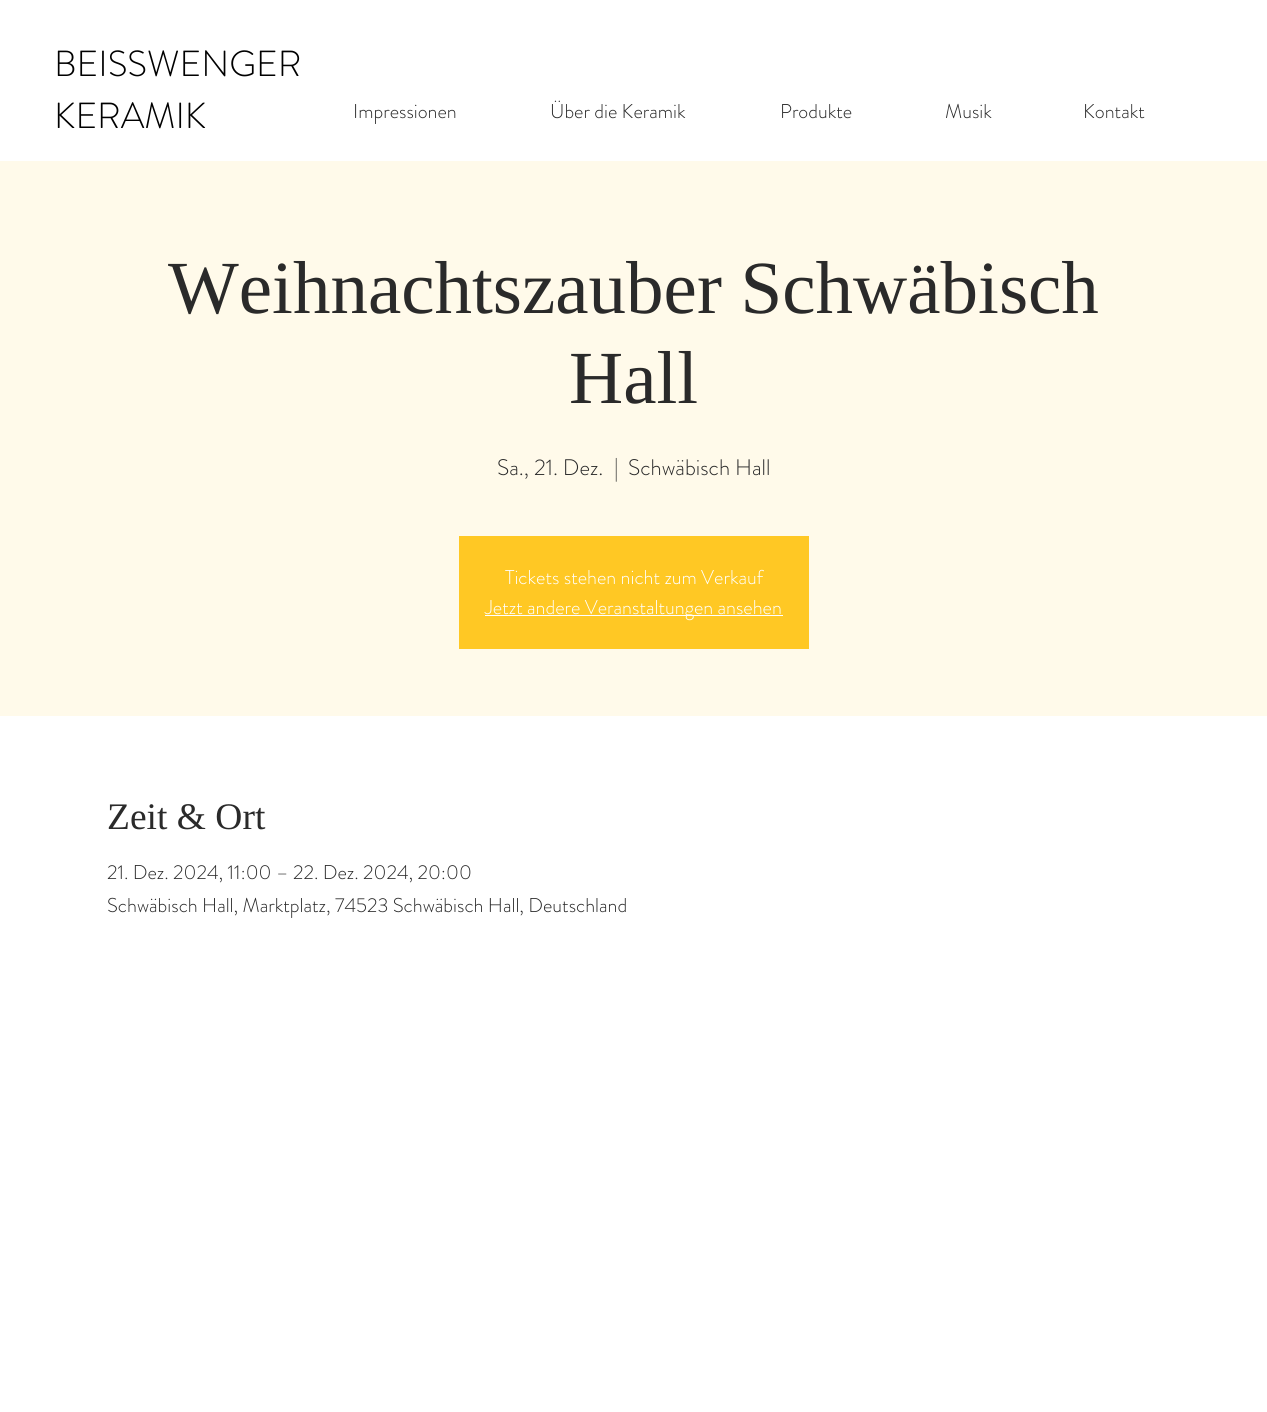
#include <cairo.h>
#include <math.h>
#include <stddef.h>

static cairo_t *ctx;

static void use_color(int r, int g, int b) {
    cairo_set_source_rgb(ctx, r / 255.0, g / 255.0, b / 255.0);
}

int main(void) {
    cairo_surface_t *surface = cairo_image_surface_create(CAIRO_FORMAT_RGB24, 1267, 1412);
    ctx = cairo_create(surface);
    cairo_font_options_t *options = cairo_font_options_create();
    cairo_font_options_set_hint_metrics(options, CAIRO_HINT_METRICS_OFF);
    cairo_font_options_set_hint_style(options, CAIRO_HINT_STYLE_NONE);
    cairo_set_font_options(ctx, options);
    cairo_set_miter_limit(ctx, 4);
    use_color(255, 255, 255);
    cairo_paint(ctx);
    cairo_select_font_face(ctx, "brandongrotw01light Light", CAIRO_FONT_SLANT_NORMAL, CAIRO_FONT_WEIGHT_NORMAL);
    cairo_set_font_size(ctx, 36.25);
    use_color(0, 0, 0);
    cairo_move_to(ctx, 54, 76);
    cairo_show_text(ctx, "BEISSWENGER");
    cairo_move_to(ctx, 54, 128);
    cairo_show_text(ctx, "KERAMIK");
    cairo_set_font_size(ctx, 20);
    use_color(42, 42, 42);
    cairo_move_to(ctx, 353, 118);
    cairo_show_text(ctx, "Impressionen");
    cairo_move_to(ctx, 550, 118);
    cairo_show_text(ctx, "Über die Keramik");
    cairo_move_to(ctx, 780, 118);
    cairo_show_text(ctx, "Produkte");
    cairo_move_to(ctx, 945, 118);
    cairo_show_text(ctx, "Musik");
    cairo_move_to(ctx, 1083, 118);
    cairo_show_text(ctx, "Kontakt");
    use_color(255, 250, 234);
    cairo_rectangle(ctx, 0, 161, 1267, 555);
    cairo_fill(ctx);
    cairo_select_font_face(ctx, "Liberation Serif", CAIRO_FONT_SLANT_NORMAL, CAIRO_FONT_WEIGHT_NORMAL);
    cairo_set_font_size(ctx, 75);
    use_color(42, 42, 42);
    cairo_move_to(ctx, 168, 313);
    cairo_show_text(ctx, "Weihnachtszauber Schwäbisch");
    cairo_move_to(ctx, 569, 403);
    cairo_show_text(ctx, "Hall");
    cairo_select_font_face(ctx, "brandongrotw01light Light", CAIRO_FONT_SLANT_NORMAL, CAIRO_FONT_WEIGHT_NORMAL);
    cairo_set_font_size(ctx, 22.5);
    cairo_move_to(ctx, 497, 475);
    cairo_show_text(ctx, "Sa., 21. Dez.");
    cairo_move_to(ctx, 614, 475);
    cairo_show_text(ctx, "|");
    cairo_move_to(ctx, 628, 475);
    cairo_show_text(ctx, "Schwäbisch Hall");
    use_color(255, 200, 36);
    cairo_rectangle(ctx, 459, 536, 350, 113);
    cairo_fill(ctx);
    cairo_set_font_size(ctx, 20);
    use_color(255, 255, 255);
    cairo_move_to(ctx, 505, 584);
    cairo_show_text(ctx, "Tickets stehen nicht zum Verkauf");
    cairo_rectangle(ctx, 485, 615, 298, 1);
    cairo_fill(ctx);
    cairo_move_to(ctx, 485, 614);
    cairo_show_text(ctx, "Jetzt andere Veranstaltungen ansehen");
    cairo_select_font_face(ctx, "Liberation Serif", CAIRO_FONT_SLANT_NORMAL, CAIRO_FONT_WEIGHT_NORMAL);
    cairo_set_font_size(ctx, 37.5);
    use_color(42, 42, 42);
    cairo_move_to(ctx, 107, 829);
    cairo_show_text(ctx, "Zeit & Ort");
    cairo_select_font_face(ctx, "brandongrotw01light Light", CAIRO_FONT_SLANT_NORMAL, CAIRO_FONT_WEIGHT_NORMAL);
    cairo_set_font_size(ctx, 20);
    cairo_move_to(ctx, 107, 879);
    cairo_show_text(ctx, "21. Dez. 2024, 11:00 – 22. Dez. 2024, 20:00");
    cairo_move_to(ctx, 107, 912);
    cairo_show_text(ctx, "Schwäbisch Hall, Marktplatz, 74523 Schwäbisch Hall, Deutschland");
    cairo_surface_write_to_png(surface, "result.png");
    cairo_font_options_destroy(options);
    cairo_destroy(ctx);
    cairo_surface_destroy(surface);
    return 0;
}
